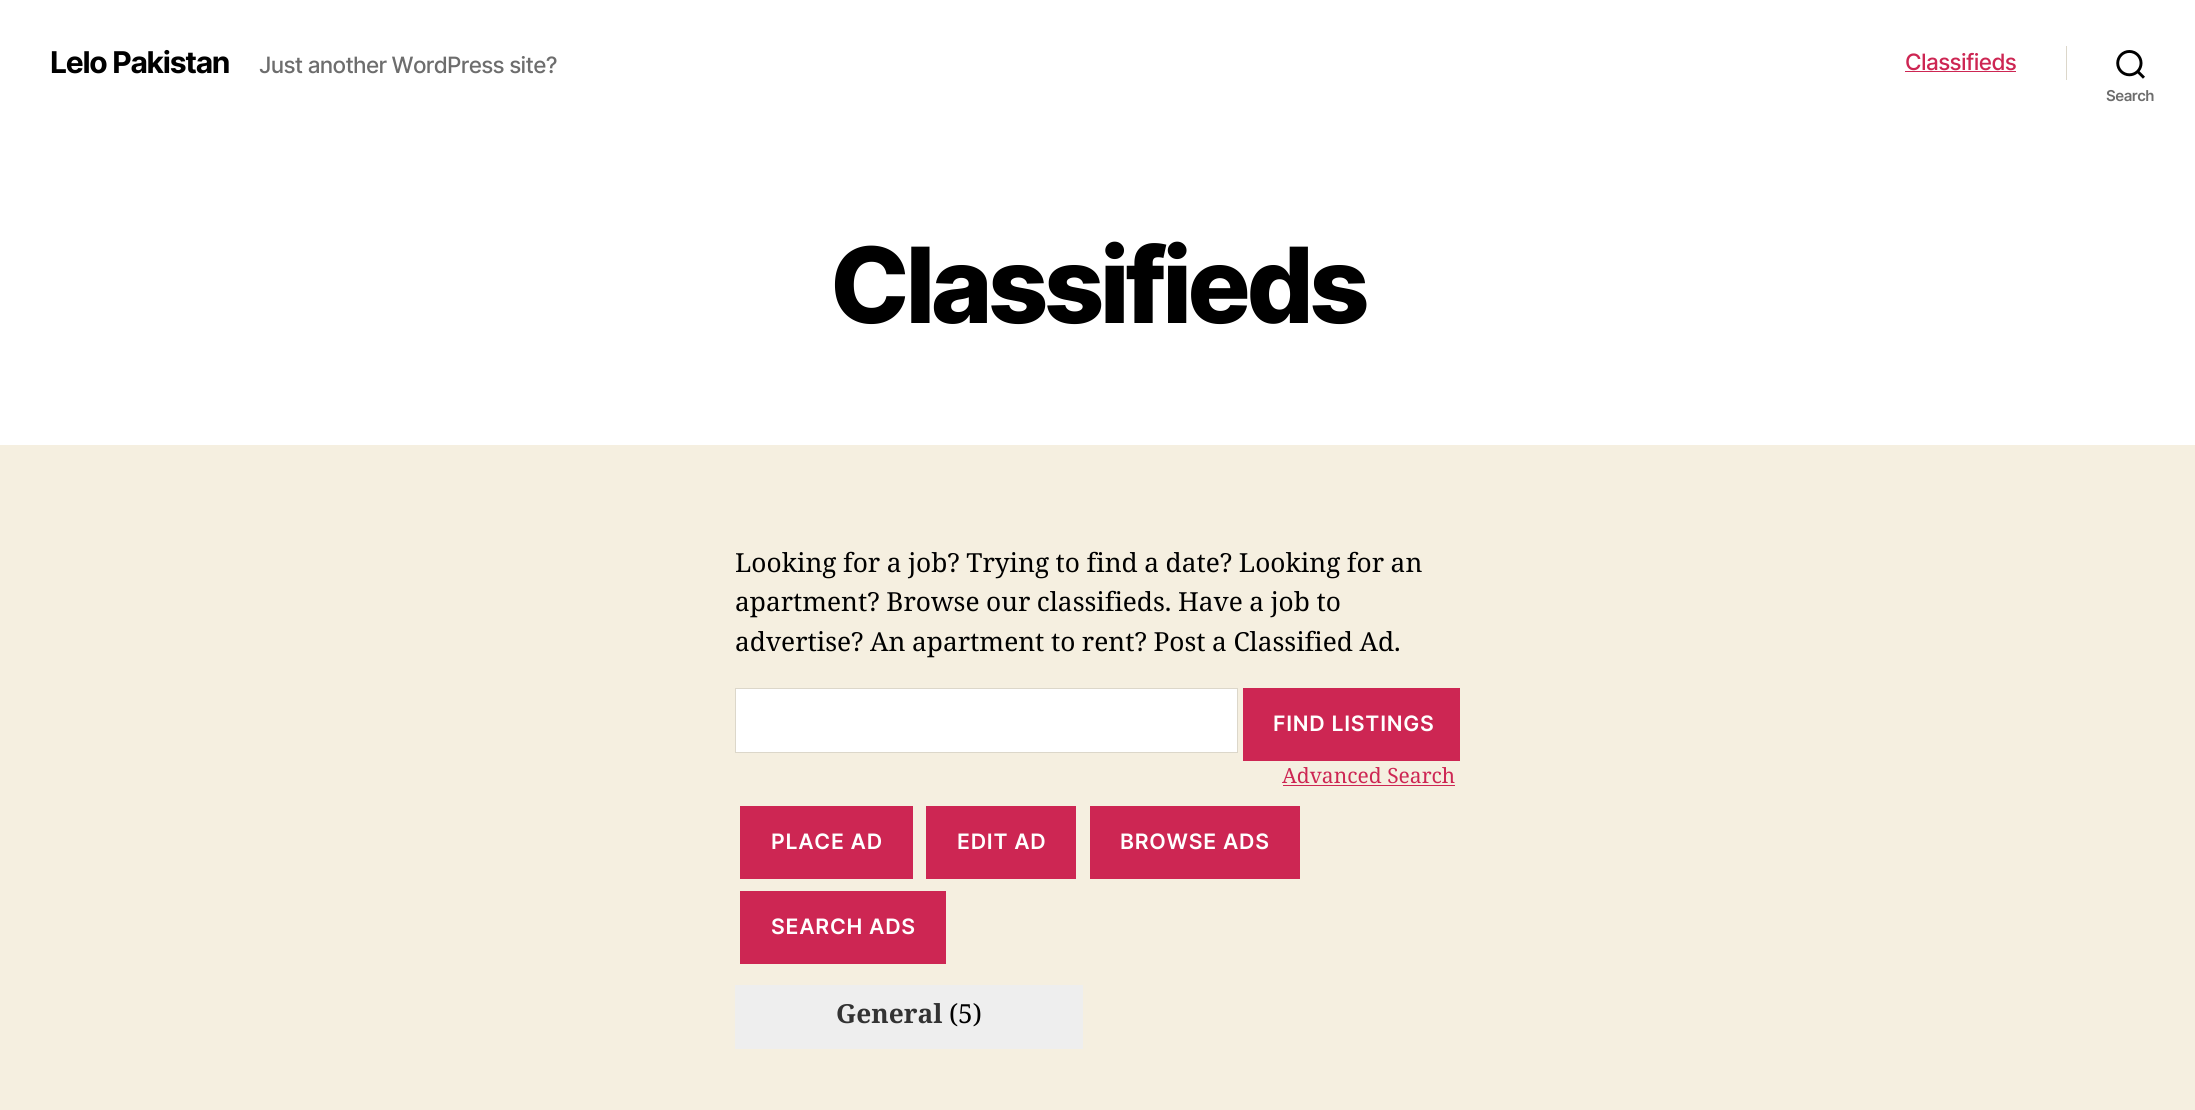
#include <cairo.h>
#include <math.h>
#include <stddef.h>

static cairo_t *ctx;

static void use_color(int r, int g, int b) {
    cairo_set_source_rgb(ctx, r / 255.0, g / 255.0, b / 255.0);
}

static void spaced_text(double x, double y, const char *s, double letter, double word) {
    cairo_move_to(ctx, x, y);
    while (*s) {
        char ch[5] = {0};
        int n = 0;
        do ch[n++] = *s++; while ((*s & 0xC0) == 0x80);
        cairo_show_text(ctx, ch);
        cairo_rel_move_to(ctx, letter + word * (*ch == ' '), 0);
    }
}

static void picture(const char *path, double x, double y, double w, double h) {
    cairo_surface_t *image = cairo_image_surface_create_from_png(path);
    cairo_save(ctx);
    cairo_set_source_surface(ctx, image, x, y);
    cairo_rectangle(ctx, x, y, w, h);
    cairo_fill(ctx);
    cairo_restore(ctx);
    cairo_surface_destroy(image);
}

int main(void) {
    cairo_surface_t *surface = cairo_image_surface_create(CAIRO_FORMAT_RGB24, 2195, 1110);
    ctx = cairo_create(surface);
    cairo_font_options_t *options = cairo_font_options_create();
    cairo_font_options_set_hint_metrics(options, CAIRO_HINT_METRICS_OFF);
    cairo_font_options_set_hint_style(options, CAIRO_HINT_STYLE_NONE);
    cairo_set_font_options(ctx, options);
    cairo_set_miter_limit(ctx, 4);
    use_color(245, 239, 224);
    cairo_paint(ctx);
    use_color(255, 255, 255);
    cairo_rectangle(ctx, 0, 0, 2195, 445);
    cairo_fill(ctx);
    cairo_select_font_face(ctx, "Inter", CAIRO_FONT_SLANT_NORMAL, CAIRO_FONT_WEIGHT_BOLD);
    cairo_set_font_size(ctx, 30);
    use_color(0, 0, 0);
    spaced_text(50, 73, "Lelo Pakistan", -1.25, 0);
    cairo_select_font_face(ctx, "Inter Medium", CAIRO_FONT_SLANT_NORMAL, CAIRO_FONT_WEIGHT_NORMAL);
    cairo_set_font_size(ctx, 22.5);
    use_color(109, 109, 109);
    spaced_text(259, 73, "Just another WordPress site?", -0.7, 0);
    use_color(205, 38, 83);
    spaced_text(1905, 70, "Classifieds", -0.6, 0);
    cairo_rectangle(ctx, 1905, 71, 111, 1);
    cairo_fill(ctx);
    use_color(220, 215, 202);
    cairo_rectangle(ctx, 2066, 46, 1, 34);
    cairo_fill(ctx);
    picture("img1.png", 2116, 50, 29, 29);
    cairo_select_font_face(ctx, "Inter SemiBold", CAIRO_FONT_SLANT_NORMAL, CAIRO_FONT_WEIGHT_NORMAL);
    cairo_set_font_size(ctx, 15);
    use_color(109, 109, 109);
    spaced_text(2106, 101, "Search", -0.5, 0);
    cairo_select_font_face(ctx, "Inter ExtraBold", CAIRO_FONT_SLANT_NORMAL, CAIRO_FONT_WEIGHT_NORMAL);
    cairo_set_font_size(ctx, 105);
    use_color(0, 0, 0);
    spaced_text(830, 323, "Classifieds", -4.4, 0);
    cairo_select_font_face(ctx, "Noto Serif", CAIRO_FONT_SLANT_NORMAL, CAIRO_FONT_WEIGHT_NORMAL);
    cairo_set_font_size(ctx, 26.25);
    spaced_text(735, 572, "Looking for a job? Trying to find a date? Looking for an", 0, -0.25);
    spaced_text(735, 611, "apartment? Browse our classifieds. Have a job to", 0, -0.25);
    spaced_text(735, 651, "advertise? An apartment to rent? Post a Classified Ad.", 0, -0.25);
    use_color(255, 255, 255);
    cairo_rectangle(ctx, 735.5, 688.5, 502, 64);
    cairo_fill_preserve(ctx);
    use_color(220, 215, 202);
    cairo_set_line_width(ctx, 1);
    cairo_stroke(ctx);
    use_color(205, 38, 83);
    cairo_rectangle(ctx, 1243, 688, 217, 73);
    cairo_fill(ctx);
    cairo_select_font_face(ctx, "Inter SemiBold", CAIRO_FONT_SLANT_NORMAL, CAIRO_FONT_WEIGHT_NORMAL);
    cairo_set_font_size(ctx, 21.25);
    use_color(255, 255, 255);
    spaced_text(1273, 731, "FIND LISTINGS", 0.75, 0);
    cairo_select_font_face(ctx, "Noto Serif", CAIRO_FONT_SLANT_NORMAL, CAIRO_FONT_WEIGHT_NORMAL);
    cairo_set_font_size(ctx, 21);
    use_color(205, 38, 83);
    cairo_move_to(ctx, 1282, 783);
    cairo_show_text(ctx, "Advanced Search");
    cairo_rectangle(ctx, 1283, 785, 172, 1);
    cairo_fill(ctx);
    cairo_rectangle(ctx, 740, 806, 173, 73);
    cairo_fill(ctx);
    cairo_select_font_face(ctx, "Inter SemiBold", CAIRO_FONT_SLANT_NORMAL, CAIRO_FONT_WEIGHT_NORMAL);
    cairo_set_font_size(ctx, 21.25);
    use_color(255, 255, 255);
    spaced_text(771, 849, "PLACE AD", 0.75, 0);
    use_color(205, 38, 83);
    cairo_rectangle(ctx, 926, 806, 150, 73);
    cairo_fill(ctx);
    use_color(255, 255, 255);
    spaced_text(957, 849, "EDIT AD", 0.75, 0);
    use_color(205, 38, 83);
    cairo_rectangle(ctx, 1090, 806, 210, 73);
    cairo_fill(ctx);
    use_color(255, 255, 255);
    spaced_text(1120, 849, "BROWSE ADS", 0.75, 0);
    use_color(205, 38, 83);
    cairo_rectangle(ctx, 740, 891, 206, 73);
    cairo_fill(ctx);
    use_color(255, 255, 255);
    spaced_text(771, 934, "SEARCH ADS", 0.75, 0);
    use_color(238, 238, 238);
    cairo_rectangle(ctx, 735, 985, 348, 64);
    cairo_fill(ctx);
    cairo_select_font_face(ctx, "Noto Serif", CAIRO_FONT_SLANT_NORMAL, CAIRO_FONT_WEIGHT_BOLD);
    cairo_set_font_size(ctx, 26.25);
    use_color(51, 51, 51);
    cairo_move_to(ctx, 836, 1023);
    cairo_show_text(ctx, "General");
    cairo_select_font_face(ctx, "Noto Serif", CAIRO_FONT_SLANT_NORMAL, CAIRO_FONT_WEIGHT_NORMAL);
    use_color(0, 0, 0);
    cairo_move_to(ctx, 949, 1023);
    cairo_show_text(ctx, "(5)");
    cairo_surface_write_to_png(surface, "result.png");
    cairo_font_options_destroy(options);
    cairo_destroy(ctx);
    cairo_surface_destroy(surface);
    return 0;
}
